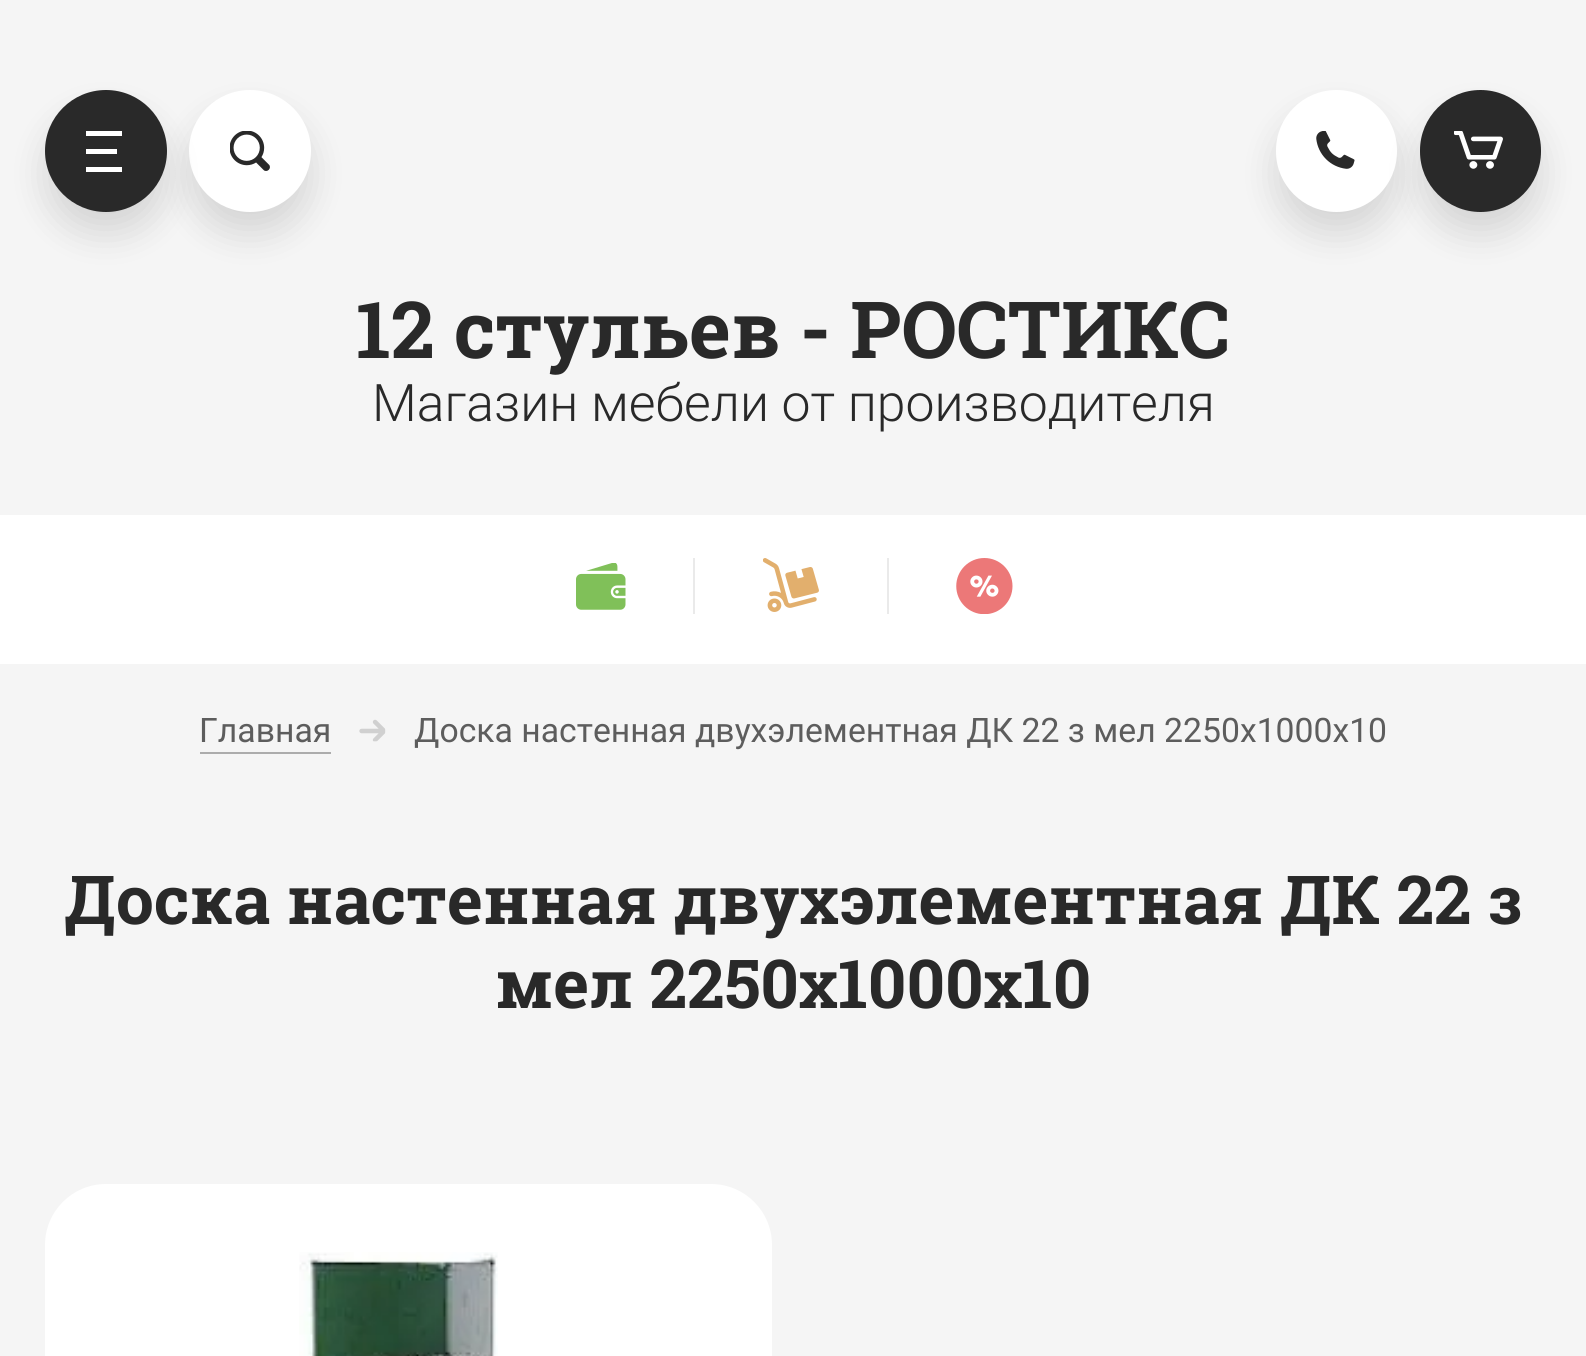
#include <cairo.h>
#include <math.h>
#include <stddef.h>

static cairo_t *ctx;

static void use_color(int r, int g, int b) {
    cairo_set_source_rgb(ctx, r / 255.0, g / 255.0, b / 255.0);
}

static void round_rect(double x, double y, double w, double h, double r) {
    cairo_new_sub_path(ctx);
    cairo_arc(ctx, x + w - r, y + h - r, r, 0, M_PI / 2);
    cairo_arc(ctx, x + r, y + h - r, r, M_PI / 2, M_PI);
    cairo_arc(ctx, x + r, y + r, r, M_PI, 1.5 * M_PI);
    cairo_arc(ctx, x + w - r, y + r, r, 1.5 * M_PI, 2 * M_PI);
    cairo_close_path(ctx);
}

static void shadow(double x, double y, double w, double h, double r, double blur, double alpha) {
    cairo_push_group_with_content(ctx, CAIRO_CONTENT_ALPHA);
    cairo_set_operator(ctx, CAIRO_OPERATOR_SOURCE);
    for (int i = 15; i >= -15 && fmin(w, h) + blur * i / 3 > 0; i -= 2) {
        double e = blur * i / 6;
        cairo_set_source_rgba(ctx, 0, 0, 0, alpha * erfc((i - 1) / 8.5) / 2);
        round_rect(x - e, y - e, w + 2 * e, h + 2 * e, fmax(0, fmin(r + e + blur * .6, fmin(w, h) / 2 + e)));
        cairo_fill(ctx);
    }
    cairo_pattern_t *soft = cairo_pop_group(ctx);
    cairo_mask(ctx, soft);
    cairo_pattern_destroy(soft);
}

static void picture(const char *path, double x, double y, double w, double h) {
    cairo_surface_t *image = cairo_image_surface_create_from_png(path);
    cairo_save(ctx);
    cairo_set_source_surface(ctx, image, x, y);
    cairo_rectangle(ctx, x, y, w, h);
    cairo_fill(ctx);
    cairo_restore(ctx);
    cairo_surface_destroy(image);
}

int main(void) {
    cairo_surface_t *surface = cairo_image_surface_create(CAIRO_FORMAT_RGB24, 1586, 1356);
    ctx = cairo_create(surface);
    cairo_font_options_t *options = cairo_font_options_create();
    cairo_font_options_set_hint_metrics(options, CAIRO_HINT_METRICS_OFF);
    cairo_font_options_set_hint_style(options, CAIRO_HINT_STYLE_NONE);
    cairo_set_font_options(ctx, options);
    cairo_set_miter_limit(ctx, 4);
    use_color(245, 245, 245);
    cairo_paint(ctx);
    use_color(0, 0, 0);
    shadow(189, 113, 122, 121, 60.5, 17, 0.13);
    use_color(255, 255, 255);
    cairo_arc(ctx, 250, 151, 61, 0, 2 * M_PI);
    cairo_fill(ctx);
    use_color(0, 0, 0);
    shadow(45, 113, 122, 121, 60.5, 17, 0.13);
    use_color(41, 41, 41);
    cairo_arc(ctx, 106, 151, 61, 0, 2 * M_PI);
    cairo_fill(ctx);
    use_color(255, 255, 255);
    cairo_rectangle(ctx, 86, 131, 36, 5);
    cairo_fill(ctx);
    cairo_rectangle(ctx, 86, 149, 31, 5);
    cairo_fill(ctx);
    cairo_rectangle(ctx, 86, 167, 36, 5);
    cairo_fill(ctx);
    picture("img1.png", 230, 131, 40, 40);
    use_color(0, 0, 0);
    shadow(1276, 113, 121, 121, 60.5, 17, 0.13);
    use_color(255, 255, 255);
    round_rect(1276, 90, 121, 122, 60.5);
    cairo_fill(ctx);
    picture("img2.png", 1316, 131, 39, 38);
    use_color(0, 0, 0);
    shadow(1420, 113, 121, 121, 60.5, 17, 0.13);
    use_color(41, 41, 41);
    round_rect(1420, 90, 121, 122, 60.5);
    cairo_fill(ctx);
    picture("img3.png", 1454, 131, 49, 38);
    cairo_select_font_face(ctx, "Roboto Slab", CAIRO_FONT_SLANT_NORMAL, CAIRO_FONT_WEIGHT_BOLD);
    cairo_set_font_size(ctx, 78.75);
    cairo_move_to(ctx, 356, 358);
    cairo_show_text(ctx, "12 стульев - РОСТИКС");
    cairo_select_font_face(ctx, "Roboto Light", CAIRO_FONT_SLANT_NORMAL, CAIRO_FONT_WEIGHT_NORMAL);
    cairo_set_font_size(ctx, 51.75);
    cairo_move_to(ctx, 372, 421);
    cairo_show_text(ctx, "Магазин мебели от производителя");
    use_color(255, 255, 255);
    cairo_rectangle(ctx, 0, 515, 1586, 149);
    cairo_fill(ctx);
    picture("img4.png", 576, 563, 50, 47);
    use_color(234, 234, 234);
    cairo_rectangle(ctx, 693, 558, 2, 56);
    cairo_fill(ctx);
    picture("img5.png", 763, 558, 56, 54);
    cairo_rectangle(ctx, 887, 558, 2, 56);
    cairo_fill(ctx);
    picture("img6.png", 956, 558, 57, 56);
    cairo_select_font_face(ctx, "Roboto", CAIRO_FONT_SLANT_NORMAL, CAIRO_FONT_WEIGHT_NORMAL);
    cairo_set_font_size(ctx, 33.75);
    use_color(93, 93, 93);
    cairo_move_to(ctx, 199, 742);
    cairo_show_text(ctx, "Главная");
    use_color(172, 172, 172);
    cairo_rectangle(ctx, 200, 752, 131, 2);
    cairo_fill(ctx);
    picture("img7.png", 359, 719, 27, 23);
    use_color(93, 93, 93);
    cairo_move_to(ctx, 414, 742);
    cairo_show_text(ctx, "Доска настенная двухэлементная ДК 22 з мел 2250x1000x10");
    cairo_select_font_face(ctx, "Roboto Slab", CAIRO_FONT_SLANT_NORMAL, CAIRO_FONT_WEIGHT_BOLD);
    cairo_set_font_size(ctx, 67.5);
    use_color(41, 41, 41);
    cairo_move_to(ctx, 64, 924);
    cairo_show_text(ctx, "Доска настенная двухэлементная ДК 22 з");
    cairo_move_to(ctx, 495, 1008);
    cairo_show_text(ctx, "мел 2250x1000x10");
    use_color(255, 255, 255);
    round_rect(45, 1184, 727, 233, 61);
    cairo_fill(ctx);
    picture("img8.png", 299, 1252, 199, 104);
    cairo_surface_write_to_png(surface, "result.png");
    cairo_font_options_destroy(options);
    cairo_destroy(ctx);
    cairo_surface_destroy(surface);
    return 0;
}
